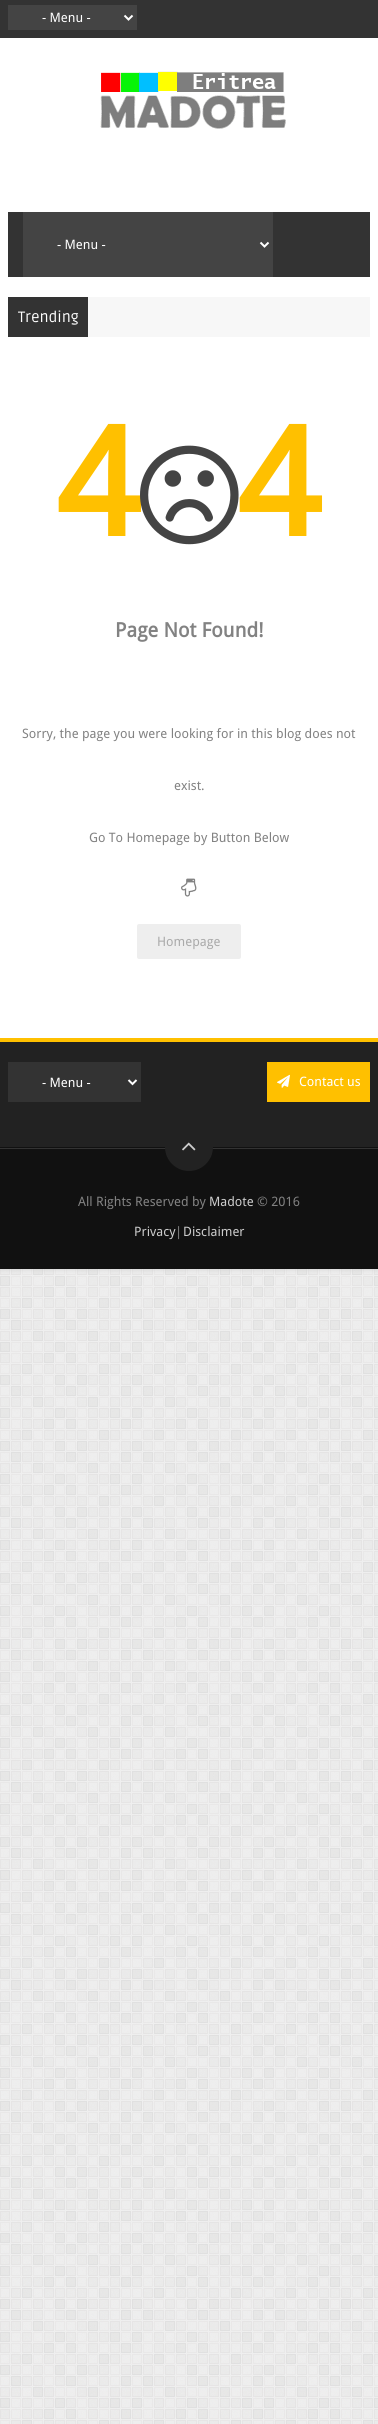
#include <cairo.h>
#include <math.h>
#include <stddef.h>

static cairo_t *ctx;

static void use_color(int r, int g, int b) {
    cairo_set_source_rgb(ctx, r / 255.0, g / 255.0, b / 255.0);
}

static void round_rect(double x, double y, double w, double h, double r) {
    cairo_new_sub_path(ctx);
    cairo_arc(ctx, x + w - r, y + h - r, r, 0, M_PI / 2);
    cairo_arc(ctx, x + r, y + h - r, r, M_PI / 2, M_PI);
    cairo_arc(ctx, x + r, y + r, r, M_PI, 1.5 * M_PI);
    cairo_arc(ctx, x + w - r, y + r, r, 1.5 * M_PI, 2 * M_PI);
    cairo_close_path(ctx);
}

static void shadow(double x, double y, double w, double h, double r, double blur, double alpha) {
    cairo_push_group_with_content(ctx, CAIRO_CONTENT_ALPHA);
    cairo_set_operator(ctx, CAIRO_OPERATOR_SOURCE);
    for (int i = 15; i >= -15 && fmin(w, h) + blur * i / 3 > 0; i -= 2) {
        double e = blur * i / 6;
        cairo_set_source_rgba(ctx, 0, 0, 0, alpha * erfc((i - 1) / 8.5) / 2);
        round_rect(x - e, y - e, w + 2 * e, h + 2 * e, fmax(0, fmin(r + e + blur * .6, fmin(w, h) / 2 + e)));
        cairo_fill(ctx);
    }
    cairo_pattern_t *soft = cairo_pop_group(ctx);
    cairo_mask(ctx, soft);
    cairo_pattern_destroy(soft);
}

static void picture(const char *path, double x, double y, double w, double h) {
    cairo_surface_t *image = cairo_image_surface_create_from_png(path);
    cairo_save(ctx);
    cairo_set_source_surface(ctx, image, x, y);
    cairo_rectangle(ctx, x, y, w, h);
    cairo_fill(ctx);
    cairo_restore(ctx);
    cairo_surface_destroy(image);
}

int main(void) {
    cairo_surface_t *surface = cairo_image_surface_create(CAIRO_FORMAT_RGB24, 378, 2424);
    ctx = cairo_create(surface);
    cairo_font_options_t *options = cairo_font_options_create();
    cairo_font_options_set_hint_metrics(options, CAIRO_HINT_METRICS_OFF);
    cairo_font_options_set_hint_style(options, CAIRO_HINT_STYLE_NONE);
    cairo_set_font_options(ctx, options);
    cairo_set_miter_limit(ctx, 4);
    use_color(238, 238, 238);
    cairo_paint(ctx);
    picture("img1.png", 0, 1269, 378, 1155);
    use_color(204, 204, 204);
    shadow(0, 0, 378, 1269, 0, 2.5, 1);
    use_color(255, 255, 255);
    cairo_rectangle(ctx, 0, 38, 378, 1000);
    cairo_fill(ctx);
    use_color(51, 51, 51);
    cairo_rectangle(ctx, 0, 0, 378, 38);
    cairo_fill(ctx);
    use_color(68, 68, 68);
    cairo_rectangle(ctx, 8, 5, 129, 25);
    cairo_fill(ctx);
    cairo_new_path(ctx);
    cairo_move_to(ctx, 124.5, 15.5);
    cairo_line_to(ctx, 128.5, 19.5);
    cairo_line_to(ctx, 132.5, 15.5);
    use_color(255, 255, 255);
    cairo_stroke(ctx);
    cairo_select_font_face(ctx, "Droid Sans", CAIRO_FONT_SLANT_NORMAL, CAIRO_FONT_WEIGHT_NORMAL);
    cairo_set_font_size(ctx, 13);
    cairo_move_to(ctx, 42, 22);
    cairo_show_text(ctx, "- Menu -");
    picture("img2.png", 100, 71, 186, 58);
    use_color(51, 51, 51);
    cairo_rectangle(ctx, 8, 212, 362, 65);
    cairo_fill(ctx);
    use_color(68, 68, 68);
    cairo_rectangle(ctx, 23, 212, 250, 65);
    cairo_fill(ctx);
    cairo_new_path(ctx);
    cairo_move_to(ctx, 260.5, 242.5);
    cairo_line_to(ctx, 264.5, 246.5);
    cairo_line_to(ctx, 268.5, 242.5);
    use_color(255, 255, 255);
    cairo_stroke(ctx);
    cairo_move_to(ctx, 57, 249);
    cairo_show_text(ctx, "- Menu -");
    use_color(247, 247, 247);
    cairo_rectangle(ctx, 88, 297, 282, 40);
    cairo_fill(ctx);
    use_color(51, 51, 51);
    cairo_rectangle(ctx, 8, 297, 80, 40);
    cairo_fill(ctx);
    cairo_select_font_face(ctx, "Ruda", CAIRO_FONT_SLANT_NORMAL, CAIRO_FONT_WEIGHT_NORMAL);
    cairo_set_font_size(ctx, 15);
    use_color(255, 255, 255);
    cairo_move_to(ctx, 18, 322);
    cairo_show_text(ctx, "Trending");
    cairo_select_font_face(ctx, "Droid Sans", CAIRO_FONT_SLANT_NORMAL, CAIRO_FONT_WEIGHT_BOLD);
    cairo_set_font_size(ctx, 150);
    use_color(255, 192, 0);
    cairo_move_to(ctx, 57, 536);
    cairo_show_text(ctx, "4");
    picture("img3.png", 140, 445, 99, 100);
    cairo_move_to(ctx, 238, 536);
    cairo_show_text(ctx, "4");
    cairo_set_font_size(ctx, 20);
    use_color(130, 130, 130);
    cairo_move_to(ctx, 115, 637);
    cairo_show_text(ctx, "Page Not Found!");
    cairo_select_font_face(ctx, "Droid Sans", CAIRO_FONT_SLANT_NORMAL, CAIRO_FONT_WEIGHT_NORMAL);
    cairo_set_font_size(ctx, 13);
    cairo_move_to(ctx, 22, 738);
    cairo_show_text(ctx, "Sorry, the page you were looking for in this blog does not");
    cairo_move_to(ctx, 174, 790);
    cairo_show_text(ctx, "exist.");
    cairo_move_to(ctx, 89, 842);
    cairo_show_text(ctx, "Go To Homepage by Button Below");
    picture("img4.png", 181, 878, 16, 19);
    use_color(238, 238, 238);
    round_rect(137, 924, 104, 35, 2);
    cairo_fill(ctx);
    use_color(170, 170, 170);
    cairo_move_to(ctx, 157, 946);
    cairo_show_text(ctx, "Homepage");
    use_color(34, 34, 34);
    cairo_rectangle(ctx, 0, 1042, 378, 105);
    cairo_fill(ctx);
    use_color(255, 192, 0);
    cairo_rectangle(ctx, 0, 1038, 378, 4);
    cairo_fill(ctx);
    use_color(17, 17, 17);
    cairo_rectangle(ctx, 0, 1147, 378, 1);
    cairo_fill(ctx);
    use_color(51, 51, 51);
    cairo_rectangle(ctx, 8, 1062, 133, 40);
    cairo_fill(ctx);
    cairo_new_path(ctx);
    cairo_move_to(ctx, 128.5, 1080);
    cairo_line_to(ctx, 132.5, 1084);
    cairo_line_to(ctx, 136.5, 1080);
    use_color(255, 255, 255);
    cairo_stroke(ctx);
    cairo_move_to(ctx, 42, 1087);
    cairo_show_text(ctx, "- Menu -");
    use_color(255, 192, 0);
    cairo_rectangle(ctx, 267, 1062, 103, 40);
    cairo_fill(ctx);
    picture("img5.png", 277, 1074, 13, 14);
    use_color(255, 255, 255);
    cairo_move_to(ctx, 299, 1086);
    cairo_show_text(ctx, "Contact us");
    use_color(17, 17, 17);
    cairo_rectangle(ctx, 0, 1149, 378, 120);
    cairo_fill(ctx);
    use_color(51, 51, 51);
    cairo_rectangle(ctx, 0, 1148, 378, 1);
    cairo_fill(ctx);
    use_color(34, 34, 34);
    cairo_arc(ctx, 189, 1147, 24, 0, 2 * M_PI);
    cairo_fill(ctx);
    picture("img6.png", 182, 1142, 14, 9);
    use_color(130, 130, 130);
    cairo_move_to(ctx, 78, 1206);
    cairo_show_text(ctx, "All Rights Reserved by");
    use_color(204, 204, 204);
    cairo_move_to(ctx, 209, 1206);
    cairo_show_text(ctx, "Madote");
    use_color(130, 130, 130);
    cairo_move_to(ctx, 257, 1206);
    cairo_show_text(ctx, "© 2016");
    use_color(204, 204, 204);
    cairo_move_to(ctx, 134, 1236);
    cairo_show_text(ctx, "Privacy");
    use_color(130, 130, 130);
    cairo_move_to(ctx, 175, 1236);
    cairo_show_text(ctx, "|");
    use_color(204, 204, 204);
    cairo_move_to(ctx, 183, 1236);
    cairo_show_text(ctx, "Disclaimer");
    cairo_surface_write_to_png(surface, "result.png");
    cairo_font_options_destroy(options);
    cairo_destroy(ctx);
    cairo_surface_destroy(surface);
    return 0;
}
